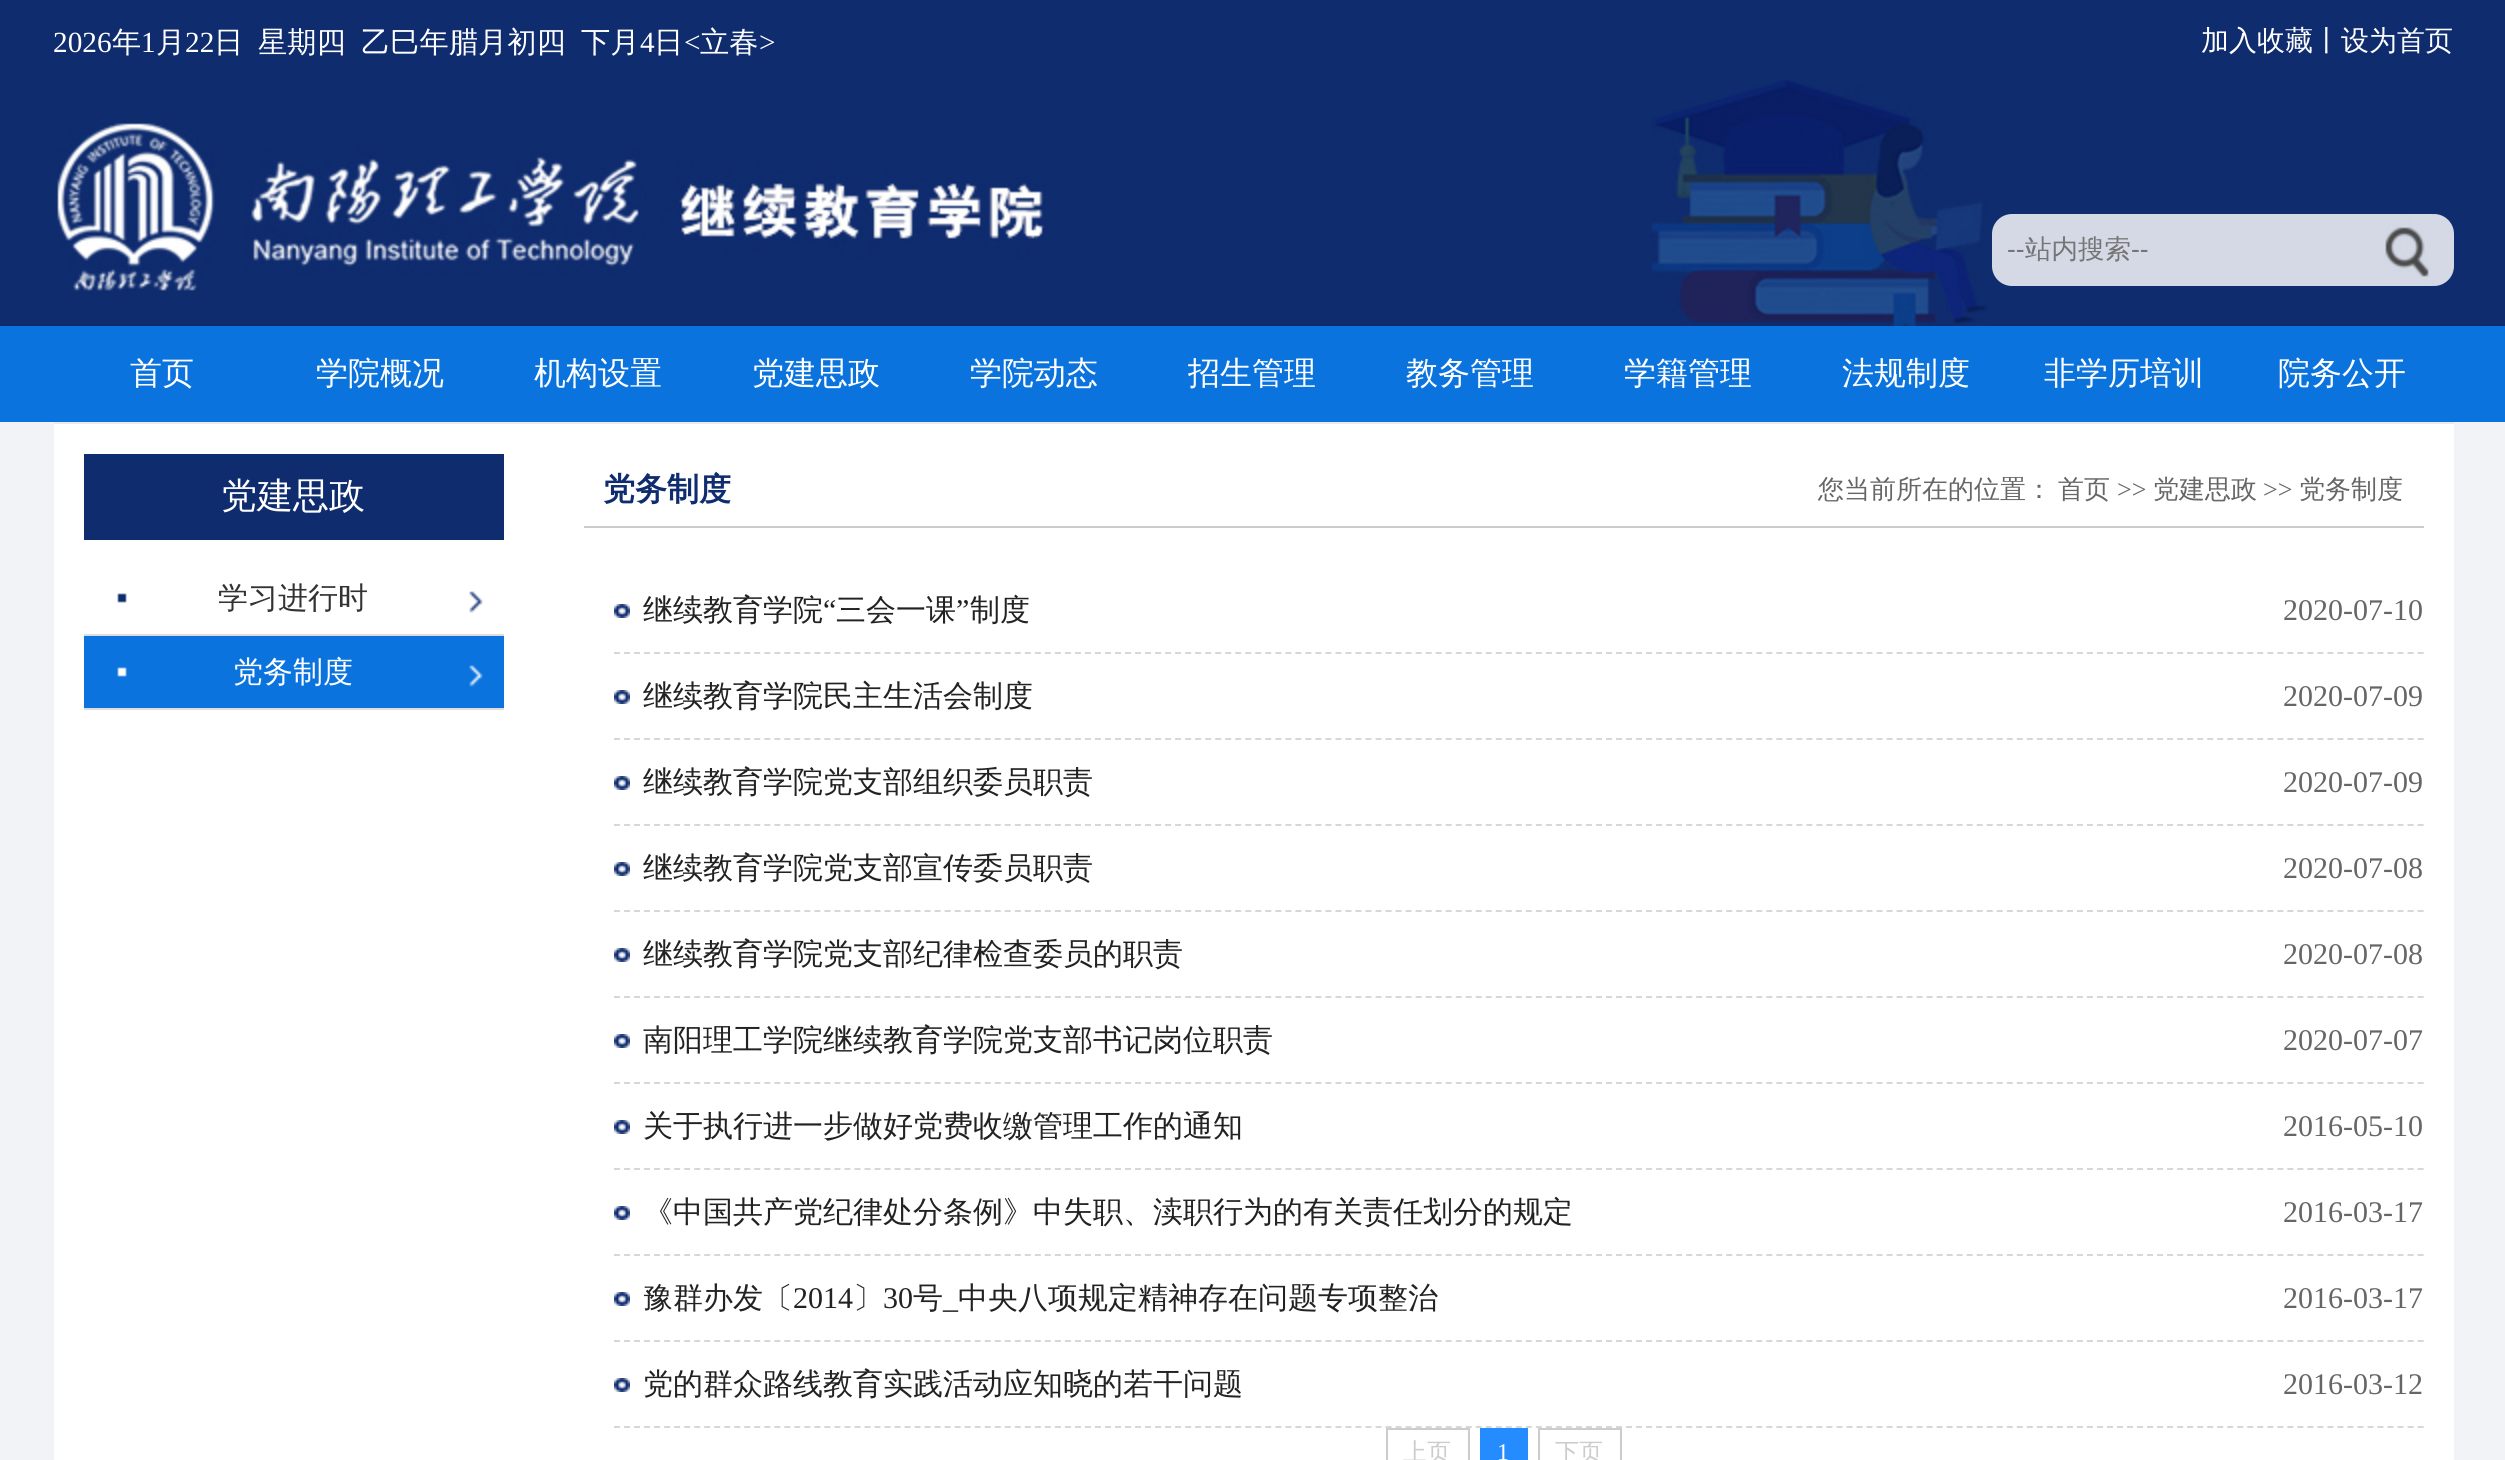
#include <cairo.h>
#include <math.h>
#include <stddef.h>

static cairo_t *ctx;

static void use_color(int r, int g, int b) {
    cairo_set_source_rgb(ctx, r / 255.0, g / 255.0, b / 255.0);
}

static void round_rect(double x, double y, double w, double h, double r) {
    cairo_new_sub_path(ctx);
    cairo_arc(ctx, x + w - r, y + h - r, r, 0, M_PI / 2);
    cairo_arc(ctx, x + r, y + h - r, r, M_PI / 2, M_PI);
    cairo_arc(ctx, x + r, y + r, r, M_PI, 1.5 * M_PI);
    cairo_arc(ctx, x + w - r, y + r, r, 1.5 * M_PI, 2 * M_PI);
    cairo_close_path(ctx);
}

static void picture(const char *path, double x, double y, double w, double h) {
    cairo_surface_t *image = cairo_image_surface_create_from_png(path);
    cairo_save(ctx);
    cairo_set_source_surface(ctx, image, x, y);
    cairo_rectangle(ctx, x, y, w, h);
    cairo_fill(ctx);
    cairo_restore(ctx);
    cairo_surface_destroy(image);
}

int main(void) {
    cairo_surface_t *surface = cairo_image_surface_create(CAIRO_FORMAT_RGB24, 2505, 1460);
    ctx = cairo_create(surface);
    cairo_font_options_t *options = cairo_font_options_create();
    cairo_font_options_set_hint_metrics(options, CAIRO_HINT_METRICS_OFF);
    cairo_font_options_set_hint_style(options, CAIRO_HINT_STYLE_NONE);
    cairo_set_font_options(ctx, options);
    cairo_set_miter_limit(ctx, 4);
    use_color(15, 44, 111);
    cairo_paint(ctx);
    picture("img1.png", 1651, 80, 337, 246);
    cairo_select_font_face(ctx, "Liberation Serif", CAIRO_FONT_SLANT_NORMAL, CAIRO_FONT_WEIGHT_NORMAL);
    cairo_set_font_size(ctx, 29.25);
    use_color(255, 255, 255);
    cairo_move_to(ctx, 53, 52);
    cairo_show_text(ctx, "2026");
    cairo_select_font_face(ctx, "WenQuanYi Zen Hei Medium", CAIRO_FONT_SLANT_NORMAL, CAIRO_FONT_WEIGHT_NORMAL);
    cairo_move_to(ctx, 112, 52);
    cairo_show_text(ctx, "年");
    cairo_select_font_face(ctx, "Liberation Serif", CAIRO_FONT_SLANT_NORMAL, CAIRO_FONT_WEIGHT_NORMAL);
    cairo_move_to(ctx, 141, 52);
    cairo_show_text(ctx, "1");
    cairo_select_font_face(ctx, "WenQuanYi Zen Hei Medium", CAIRO_FONT_SLANT_NORMAL, CAIRO_FONT_WEIGHT_NORMAL);
    cairo_move_to(ctx, 156, 52);
    cairo_show_text(ctx, "月");
    cairo_select_font_face(ctx, "Liberation Serif", CAIRO_FONT_SLANT_NORMAL, CAIRO_FONT_WEIGHT_NORMAL);
    cairo_move_to(ctx, 185, 52);
    cairo_show_text(ctx, "22");
    cairo_select_font_face(ctx, "WenQuanYi Zen Hei Medium", CAIRO_FONT_SLANT_NORMAL, CAIRO_FONT_WEIGHT_NORMAL);
    cairo_move_to(ctx, 214, 52);
    cairo_show_text(ctx, "日");
    cairo_move_to(ctx, 258, 52);
    cairo_show_text(ctx, "星期四");
    cairo_move_to(ctx, 361, 52);
    cairo_show_text(ctx, "乙巳年腊月初四");
    cairo_move_to(ctx, 581, 52);
    cairo_show_text(ctx, "下月");
    cairo_select_font_face(ctx, "Liberation Serif", CAIRO_FONT_SLANT_NORMAL, CAIRO_FONT_WEIGHT_NORMAL);
    cairo_move_to(ctx, 640, 52);
    cairo_show_text(ctx, "4");
    cairo_select_font_face(ctx, "WenQuanYi Zen Hei Medium", CAIRO_FONT_SLANT_NORMAL, CAIRO_FONT_WEIGHT_NORMAL);
    cairo_move_to(ctx, 654, 52);
    cairo_show_text(ctx, "日");
    cairo_select_font_face(ctx, "Liberation Serif", CAIRO_FONT_SLANT_NORMAL, CAIRO_FONT_WEIGHT_NORMAL);
    cairo_move_to(ctx, 684, 52);
    cairo_show_text(ctx, "<");
    cairo_select_font_face(ctx, "WenQuanYi Zen Hei Medium", CAIRO_FONT_SLANT_NORMAL, CAIRO_FONT_WEIGHT_NORMAL);
    cairo_move_to(ctx, 700, 52);
    cairo_show_text(ctx, "立春");
    cairo_select_font_face(ctx, "Liberation Serif", CAIRO_FONT_SLANT_NORMAL, CAIRO_FONT_WEIGHT_NORMAL);
    cairo_move_to(ctx, 759, 52);
    cairo_show_text(ctx, ">");
    cairo_select_font_face(ctx, "WenQuanYi Zen Hei Medium", CAIRO_FONT_SLANT_NORMAL, CAIRO_FONT_WEIGHT_NORMAL);
    cairo_set_font_size(ctx, 28);
    cairo_move_to(ctx, 2201, 50);
    cairo_show_text(ctx, "加入收藏丨设为首页");
    picture("img2.png", 57, 123, 988, 168);
    use_color(212, 217, 229);
    round_rect(1992, 214, 462, 72, 20);
    cairo_fill(ctx);
    cairo_select_font_face(ctx, "Liberation Sans", CAIRO_FONT_SLANT_NORMAL, CAIRO_FONT_WEIGHT_NORMAL);
    cairo_set_font_size(ctx, 26.5);
    use_color(117, 117, 117);
    cairo_move_to(ctx, 2007, 258);
    cairo_show_text(ctx, "--");
    cairo_select_font_face(ctx, "WenQuanYi Zen Hei Medium", CAIRO_FONT_SLANT_NORMAL, CAIRO_FONT_WEIGHT_NORMAL);
    cairo_move_to(ctx, 2025, 258);
    cairo_show_text(ctx, "站内搜索");
    cairo_select_font_face(ctx, "Liberation Sans", CAIRO_FONT_SLANT_NORMAL, CAIRO_FONT_WEIGHT_NORMAL);
    cairo_move_to(ctx, 2131, 258);
    cairo_show_text(ctx, "--");
    picture("img3.png", 2385, 214, 49, 72);
    use_color(10, 115, 222);
    cairo_rectangle(ctx, 0, 326, 2505, 96);
    cairo_fill(ctx);
    cairo_select_font_face(ctx, "WenQuanYi Zen Hei Medium", CAIRO_FONT_SLANT_NORMAL, CAIRO_FONT_WEIGHT_NORMAL);
    cairo_set_font_size(ctx, 32);
    use_color(255, 255, 255);
    cairo_move_to(ctx, 130, 384);
    cairo_show_text(ctx, "首页");
    cairo_move_to(ctx, 316, 384);
    cairo_show_text(ctx, "学院概况");
    cairo_move_to(ctx, 534, 384);
    cairo_show_text(ctx, "机构设置");
    cairo_move_to(ctx, 752, 384);
    cairo_show_text(ctx, "党建思政");
    cairo_move_to(ctx, 970, 384);
    cairo_show_text(ctx, "学院动态");
    cairo_move_to(ctx, 1188, 384);
    cairo_show_text(ctx, "招生管理");
    cairo_move_to(ctx, 1406, 384);
    cairo_show_text(ctx, "教务管理");
    cairo_move_to(ctx, 1624, 384);
    cairo_show_text(ctx, "学籍管理");
    cairo_move_to(ctx, 1842, 384);
    cairo_show_text(ctx, "法规制度");
    cairo_move_to(ctx, 2044, 384);
    cairo_show_text(ctx, "非学历培训");
    cairo_move_to(ctx, 2278, 384);
    cairo_show_text(ctx, "院务公开");
    use_color(242, 243, 247);
    cairo_rectangle(ctx, 0, 422, 2505, 1038);
    cairo_fill(ctx);
    use_color(255, 255, 255);
    cairo_rectangle(ctx, 54, 424, 2400, 1036);
    cairo_fill(ctx);
    use_color(235, 235, 235);
    cairo_rectangle(ctx, 54, 422, 2400, 2);
    cairo_fill(ctx);
    use_color(15, 44, 111);
    cairo_rectangle(ctx, 84, 454, 420, 86);
    cairo_fill(ctx);
    cairo_set_font_size(ctx, 36);
    use_color(255, 255, 255);
    cairo_move_to(ctx, 221, 508);
    cairo_show_text(ctx, "党建思政");
    picture("img4.png", 117, 591, 366, 22);
    use_color(222, 221, 221);
    cairo_rectangle(ctx, 84, 634, 420, 2);
    cairo_fill(ctx);
    cairo_set_font_size(ctx, 30);
    use_color(51, 51, 51);
    cairo_move_to(ctx, 218, 608);
    cairo_show_text(ctx, "学习进行时");
    use_color(222, 221, 221);
    cairo_rectangle(ctx, 84, 708, 420, 2);
    cairo_fill(ctx);
    use_color(10, 115, 222);
    cairo_rectangle(ctx, 84, 636, 420, 72);
    cairo_fill(ctx);
    picture("img5.png", 117, 665, 366, 22);
    use_color(255, 255, 255);
    cairo_move_to(ctx, 233, 682);
    cairo_show_text(ctx, "党务制度");
    use_color(204, 204, 204);
    cairo_rectangle(ctx, 584, 526, 1840, 2);
    cairo_fill(ctx);
    cairo_select_font_face(ctx, "WenQuanYi Zen Hei", CAIRO_FONT_SLANT_NORMAL, CAIRO_FONT_WEIGHT_BOLD);
    cairo_set_font_size(ctx, 32);
    use_color(15, 44, 111);
    cairo_move_to(ctx, 603, 500);
    cairo_show_text(ctx, "党务制度");
    cairo_select_font_face(ctx, "WenQuanYi Zen Hei Medium", CAIRO_FONT_SLANT_NORMAL, CAIRO_FONT_WEIGHT_NORMAL);
    cairo_set_font_size(ctx, 26);
    use_color(102, 102, 102);
    cairo_move_to(ctx, 1818, 498);
    cairo_show_text(ctx, "您当前所在的位置：");
    cairo_move_to(ctx, 2058, 498);
    cairo_show_text(ctx, "首页");
    cairo_select_font_face(ctx, "Liberation Serif", CAIRO_FONT_SLANT_NORMAL, CAIRO_FONT_WEIGHT_NORMAL);
    cairo_move_to(ctx, 2117, 498);
    cairo_show_text(ctx, ">>");
    cairo_select_font_face(ctx, "WenQuanYi Zen Hei Medium", CAIRO_FONT_SLANT_NORMAL, CAIRO_FONT_WEIGHT_NORMAL);
    cairo_move_to(ctx, 2153, 498);
    cairo_show_text(ctx, "党建思政");
    cairo_select_font_face(ctx, "Liberation Serif", CAIRO_FONT_SLANT_NORMAL, CAIRO_FONT_WEIGHT_NORMAL);
    cairo_move_to(ctx, 2263, 498);
    cairo_show_text(ctx, ">>");
    cairo_select_font_face(ctx, "WenQuanYi Zen Hei Medium", CAIRO_FONT_SLANT_NORMAL, CAIRO_FONT_WEIGHT_NORMAL);
    cairo_move_to(ctx, 2299, 498);
    cairo_show_text(ctx, "党务制度");
    picture("img6.png", 614, 604, 16, 14);
    cairo_new_path(ctx);
    cairo_move_to(ctx, 614, 653);
    cairo_line_to(ctx, 2424, 653);
    use_color(215, 215, 215);
    cairo_set_dash(ctx, (double[]){6, 4.02}, 2, 0);
    cairo_stroke(ctx);
    cairo_set_font_size(ctx, 30);
    use_color(34, 34, 34);
    cairo_move_to(ctx, 643, 620);
    cairo_show_text(ctx, "继续教育学院");
    cairo_select_font_face(ctx, "Liberation Serif", CAIRO_FONT_SLANT_NORMAL, CAIRO_FONT_WEIGHT_NORMAL);
    cairo_move_to(ctx, 823, 620);
    cairo_show_text(ctx, "“");
    cairo_select_font_face(ctx, "WenQuanYi Zen Hei Medium", CAIRO_FONT_SLANT_NORMAL, CAIRO_FONT_WEIGHT_NORMAL);
    cairo_move_to(ctx, 836, 620);
    cairo_show_text(ctx, "三会一课");
    cairo_select_font_face(ctx, "Liberation Serif", CAIRO_FONT_SLANT_NORMAL, CAIRO_FONT_WEIGHT_NORMAL);
    cairo_move_to(ctx, 956, 620);
    cairo_show_text(ctx, "”");
    cairo_select_font_face(ctx, "WenQuanYi Zen Hei Medium", CAIRO_FONT_SLANT_NORMAL, CAIRO_FONT_WEIGHT_NORMAL);
    cairo_move_to(ctx, 970, 620);
    cairo_show_text(ctx, "制度");
    cairo_select_font_face(ctx, "Liberation Serif", CAIRO_FONT_SLANT_NORMAL, CAIRO_FONT_WEIGHT_NORMAL);
    use_color(102, 102, 102);
    cairo_move_to(ctx, 2283, 620);
    cairo_show_text(ctx, "2020-07-10");
    picture("img6.png", 614, 690, 16, 14);
    cairo_new_path(ctx);
    cairo_move_to(ctx, 614, 739);
    cairo_line_to(ctx, 2424, 739);
    use_color(215, 215, 215);
    cairo_stroke(ctx);
    cairo_select_font_face(ctx, "WenQuanYi Zen Hei Medium", CAIRO_FONT_SLANT_NORMAL, CAIRO_FONT_WEIGHT_NORMAL);
    use_color(34, 34, 34);
    cairo_move_to(ctx, 643, 706);
    cairo_show_text(ctx, "继续教育学院民主生活会制度");
    cairo_select_font_face(ctx, "Liberation Serif", CAIRO_FONT_SLANT_NORMAL, CAIRO_FONT_WEIGHT_NORMAL);
    use_color(102, 102, 102);
    cairo_move_to(ctx, 2283, 706);
    cairo_show_text(ctx, "2020-07-09");
    picture("img6.png", 614, 776, 16, 14);
    cairo_new_path(ctx);
    cairo_move_to(ctx, 614, 825);
    cairo_line_to(ctx, 2424, 825);
    use_color(215, 215, 215);
    cairo_stroke(ctx);
    cairo_select_font_face(ctx, "WenQuanYi Zen Hei Medium", CAIRO_FONT_SLANT_NORMAL, CAIRO_FONT_WEIGHT_NORMAL);
    use_color(34, 34, 34);
    cairo_move_to(ctx, 643, 792);
    cairo_show_text(ctx, "继续教育学院党支部组织委员职责");
    cairo_select_font_face(ctx, "Liberation Serif", CAIRO_FONT_SLANT_NORMAL, CAIRO_FONT_WEIGHT_NORMAL);
    use_color(102, 102, 102);
    cairo_move_to(ctx, 2283, 792);
    cairo_show_text(ctx, "2020-07-09");
    picture("img6.png", 614, 862, 16, 14);
    cairo_new_path(ctx);
    cairo_move_to(ctx, 614, 911);
    cairo_line_to(ctx, 2424, 911);
    use_color(215, 215, 215);
    cairo_stroke(ctx);
    cairo_select_font_face(ctx, "WenQuanYi Zen Hei Medium", CAIRO_FONT_SLANT_NORMAL, CAIRO_FONT_WEIGHT_NORMAL);
    use_color(34, 34, 34);
    cairo_move_to(ctx, 643, 878);
    cairo_show_text(ctx, "继续教育学院党支部宣传委员职责");
    cairo_select_font_face(ctx, "Liberation Serif", CAIRO_FONT_SLANT_NORMAL, CAIRO_FONT_WEIGHT_NORMAL);
    use_color(102, 102, 102);
    cairo_move_to(ctx, 2283, 878);
    cairo_show_text(ctx, "2020-07-08");
    picture("img6.png", 614, 948, 16, 14);
    cairo_new_path(ctx);
    cairo_move_to(ctx, 614, 997);
    cairo_line_to(ctx, 2424, 997);
    use_color(215, 215, 215);
    cairo_stroke(ctx);
    cairo_select_font_face(ctx, "WenQuanYi Zen Hei Medium", CAIRO_FONT_SLANT_NORMAL, CAIRO_FONT_WEIGHT_NORMAL);
    use_color(34, 34, 34);
    cairo_move_to(ctx, 643, 964);
    cairo_show_text(ctx, "继续教育学院党支部纪律检查委员的职责");
    cairo_select_font_face(ctx, "Liberation Serif", CAIRO_FONT_SLANT_NORMAL, CAIRO_FONT_WEIGHT_NORMAL);
    use_color(102, 102, 102);
    cairo_move_to(ctx, 2283, 964);
    cairo_show_text(ctx, "2020-07-08");
    picture("img6.png", 614, 1034, 16, 14);
    cairo_new_path(ctx);
    cairo_move_to(ctx, 614, 1083);
    cairo_line_to(ctx, 2424, 1083);
    use_color(215, 215, 215);
    cairo_stroke(ctx);
    cairo_select_font_face(ctx, "WenQuanYi Zen Hei Medium", CAIRO_FONT_SLANT_NORMAL, CAIRO_FONT_WEIGHT_NORMAL);
    use_color(34, 34, 34);
    cairo_move_to(ctx, 643, 1050);
    cairo_show_text(ctx, "南阳理工学院继续教育学院党支部书记岗位职责");
    cairo_select_font_face(ctx, "Liberation Serif", CAIRO_FONT_SLANT_NORMAL, CAIRO_FONT_WEIGHT_NORMAL);
    use_color(102, 102, 102);
    cairo_move_to(ctx, 2283, 1050);
    cairo_show_text(ctx, "2020-07-07");
    picture("img6.png", 614, 1120, 16, 14);
    cairo_new_path(ctx);
    cairo_move_to(ctx, 614, 1169);
    cairo_line_to(ctx, 2424, 1169);
    use_color(215, 215, 215);
    cairo_stroke(ctx);
    cairo_select_font_face(ctx, "WenQuanYi Zen Hei Medium", CAIRO_FONT_SLANT_NORMAL, CAIRO_FONT_WEIGHT_NORMAL);
    use_color(34, 34, 34);
    cairo_move_to(ctx, 643, 1136);
    cairo_show_text(ctx, "关于执行进一步做好党费收缴管理工作的通知");
    cairo_select_font_face(ctx, "Liberation Serif", CAIRO_FONT_SLANT_NORMAL, CAIRO_FONT_WEIGHT_NORMAL);
    use_color(102, 102, 102);
    cairo_move_to(ctx, 2283, 1136);
    cairo_show_text(ctx, "2016-05-10");
    picture("img6.png", 614, 1206, 16, 14);
    cairo_new_path(ctx);
    cairo_move_to(ctx, 614, 1255);
    cairo_line_to(ctx, 2424, 1255);
    use_color(215, 215, 215);
    cairo_stroke(ctx);
    cairo_select_font_face(ctx, "WenQuanYi Zen Hei Medium", CAIRO_FONT_SLANT_NORMAL, CAIRO_FONT_WEIGHT_NORMAL);
    use_color(34, 34, 34);
    cairo_move_to(ctx, 643, 1222);
    cairo_show_text(ctx, "《中国共产党纪律处分条例》中失职、渎职行为的有关责任划分的规定");
    cairo_select_font_face(ctx, "Liberation Serif", CAIRO_FONT_SLANT_NORMAL, CAIRO_FONT_WEIGHT_NORMAL);
    use_color(102, 102, 102);
    cairo_move_to(ctx, 2283, 1222);
    cairo_show_text(ctx, "2016-03-17");
    picture("img6.png", 614, 1292, 16, 14);
    cairo_new_path(ctx);
    cairo_move_to(ctx, 614, 1341);
    cairo_line_to(ctx, 2424, 1341);
    use_color(215, 215, 215);
    cairo_stroke(ctx);
    cairo_select_font_face(ctx, "WenQuanYi Zen Hei Medium", CAIRO_FONT_SLANT_NORMAL, CAIRO_FONT_WEIGHT_NORMAL);
    use_color(34, 34, 34);
    cairo_move_to(ctx, 643, 1308);
    cairo_show_text(ctx, "豫群办发〔");
    cairo_select_font_face(ctx, "Liberation Serif", CAIRO_FONT_SLANT_NORMAL, CAIRO_FONT_WEIGHT_NORMAL);
    cairo_move_to(ctx, 793, 1308);
    cairo_show_text(ctx, "2014");
    cairo_select_font_face(ctx, "WenQuanYi Zen Hei Medium", CAIRO_FONT_SLANT_NORMAL, CAIRO_FONT_WEIGHT_NORMAL);
    cairo_move_to(ctx, 853, 1308);
    cairo_show_text(ctx, "〕");
    cairo_select_font_face(ctx, "Liberation Serif", CAIRO_FONT_SLANT_NORMAL, CAIRO_FONT_WEIGHT_NORMAL);
    cairo_move_to(ctx, 883, 1308);
    cairo_show_text(ctx, "30");
    cairo_select_font_face(ctx, "WenQuanYi Zen Hei Medium", CAIRO_FONT_SLANT_NORMAL, CAIRO_FONT_WEIGHT_NORMAL);
    cairo_move_to(ctx, 913, 1308);
    cairo_show_text(ctx, "号");
    cairo_move_to(ctx, 958, 1308);
    cairo_show_text(ctx, "中央八项规定精神存在问题专项整治");
    cairo_select_font_face(ctx, "Liberation Serif", CAIRO_FONT_SLANT_NORMAL, CAIRO_FONT_WEIGHT_NORMAL);
    use_color(102, 102, 102);
    cairo_move_to(ctx, 2283, 1308);
    cairo_show_text(ctx, "2016-03-17");
    use_color(34, 34, 34);
    cairo_move_to(ctx, 943, 1308);
    cairo_show_text(ctx, "_");
    picture("img6.png", 614, 1378, 16, 14);
    cairo_new_path(ctx);
    cairo_move_to(ctx, 614, 1427);
    cairo_line_to(ctx, 2424, 1427);
    use_color(215, 215, 215);
    cairo_stroke(ctx);
    cairo_select_font_face(ctx, "WenQuanYi Zen Hei Medium", CAIRO_FONT_SLANT_NORMAL, CAIRO_FONT_WEIGHT_NORMAL);
    use_color(34, 34, 34);
    cairo_move_to(ctx, 643, 1394);
    cairo_show_text(ctx, "党的群众路线教育实践活动应知晓的若干问题");
    cairo_select_font_face(ctx, "Liberation Serif", CAIRO_FONT_SLANT_NORMAL, CAIRO_FONT_WEIGHT_NORMAL);
    use_color(102, 102, 102);
    cairo_move_to(ctx, 2283, 1394);
    cairo_show_text(ctx, "2016-03-12");
    cairo_rectangle(ctx, 1387, 1429, 82, 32);
    use_color(204, 204, 204);
    cairo_set_dash(ctx, NULL, 0, 0);
    cairo_stroke(ctx);
    cairo_select_font_face(ctx, "WenQuanYi Zen Hei Medium", CAIRO_FONT_SLANT_NORMAL, CAIRO_FONT_WEIGHT_NORMAL);
    cairo_set_font_size(ctx, 24);
    cairo_move_to(ctx, 1403, 1460);
    cairo_show_text(ctx, "上页");
    use_color(37, 140, 255);
    cairo_rectangle(ctx, 1480, 1428, 48, 32);
    cairo_fill(ctx);
    cairo_select_font_face(ctx, "Liberation Serif", CAIRO_FONT_SLANT_NORMAL, CAIRO_FONT_WEIGHT_NORMAL);
    use_color(255, 255, 255);
    cairo_move_to(ctx, 1497, 1460);
    cairo_show_text(ctx, "1");
    cairo_rectangle(ctx, 1539, 1429, 82, 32);
    use_color(204, 204, 204);
    cairo_stroke(ctx);
    cairo_select_font_face(ctx, "WenQuanYi Zen Hei Medium", CAIRO_FONT_SLANT_NORMAL, CAIRO_FONT_WEIGHT_NORMAL);
    cairo_move_to(ctx, 1555, 1460);
    cairo_show_text(ctx, "下页");
    cairo_surface_write_to_png(surface, "result.png");
    cairo_font_options_destroy(options);
    cairo_destroy(ctx);
    cairo_surface_destroy(surface);
    return 0;
}
